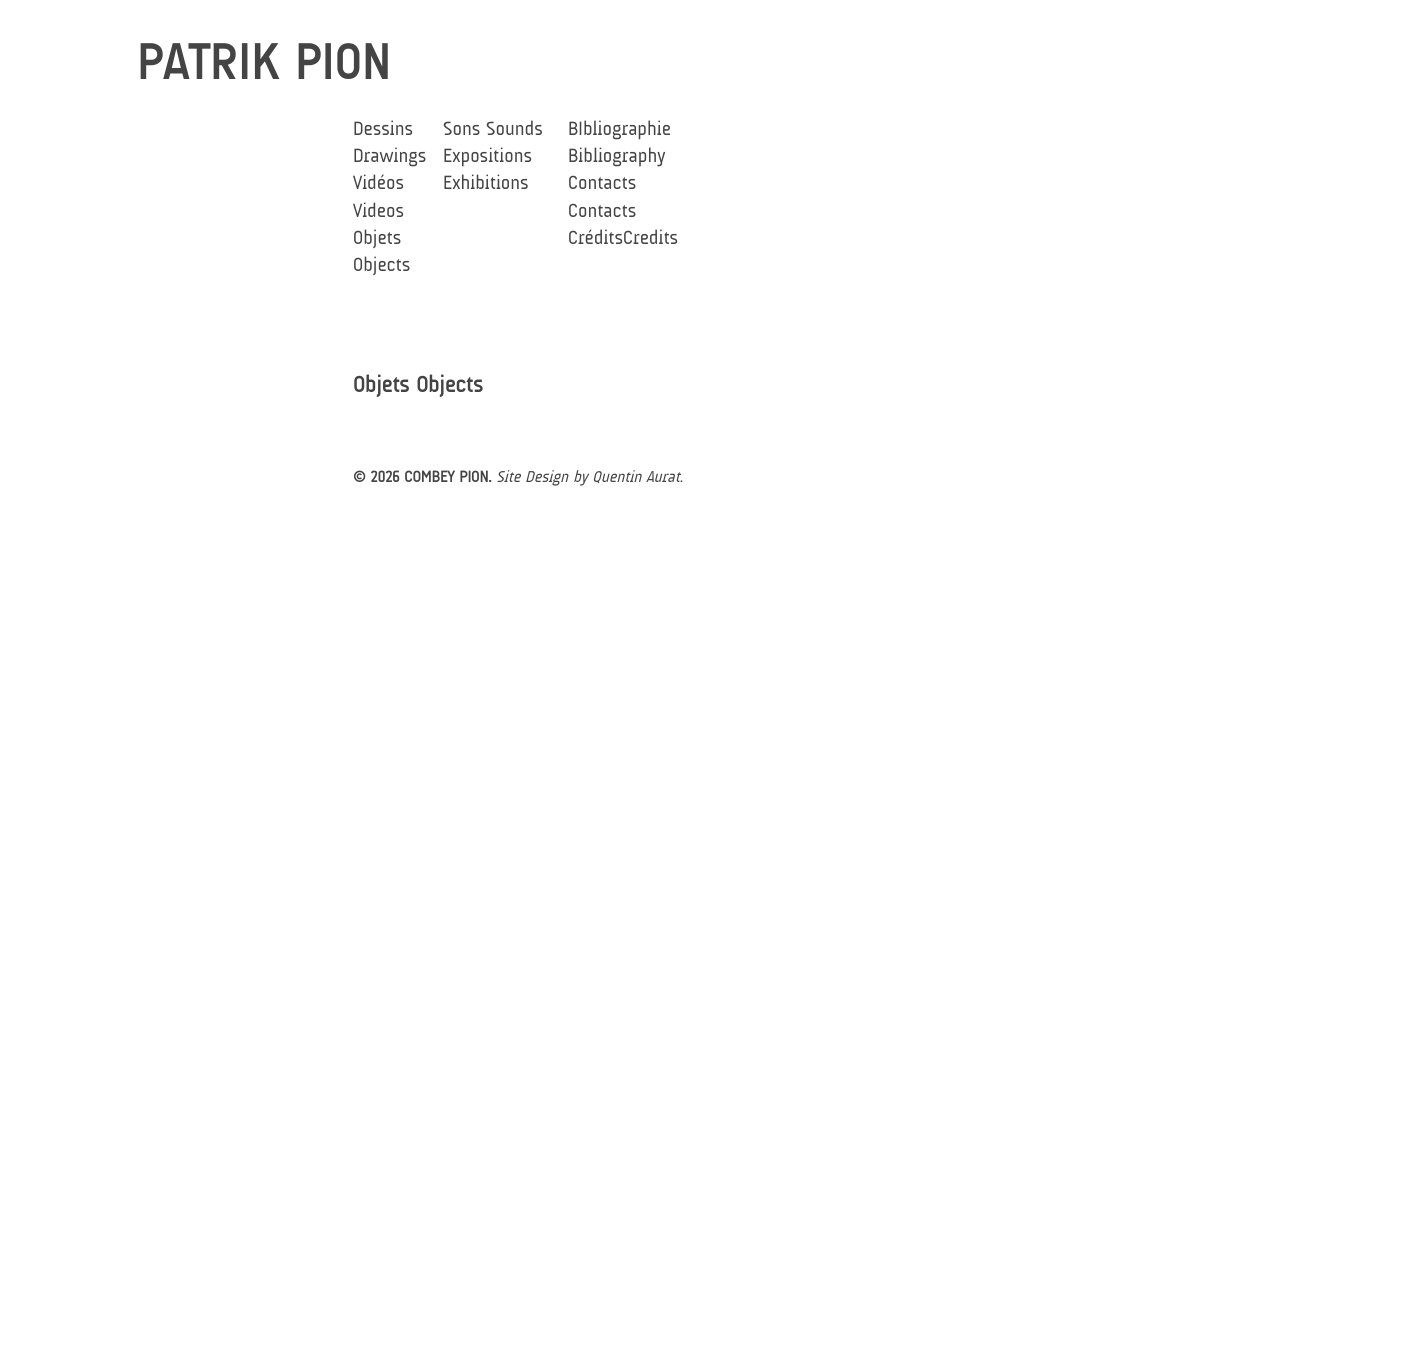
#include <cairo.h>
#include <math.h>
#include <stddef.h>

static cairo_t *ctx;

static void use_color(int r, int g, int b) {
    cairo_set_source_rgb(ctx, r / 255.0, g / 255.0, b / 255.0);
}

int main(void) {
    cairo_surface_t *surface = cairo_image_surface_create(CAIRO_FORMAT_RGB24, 1412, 1361);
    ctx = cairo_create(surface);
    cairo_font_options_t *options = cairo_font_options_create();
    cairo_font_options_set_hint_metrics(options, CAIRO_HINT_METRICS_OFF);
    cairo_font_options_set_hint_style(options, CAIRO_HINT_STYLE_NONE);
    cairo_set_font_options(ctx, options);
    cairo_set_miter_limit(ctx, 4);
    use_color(255, 255, 255);
    cairo_paint(ctx);
    cairo_select_font_face(ctx, "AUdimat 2", CAIRO_FONT_SLANT_NORMAL, CAIRO_FONT_WEIGHT_BOLD);
    cairo_set_font_size(ctx, 52.5);
    use_color(68, 68, 68);
    cairo_move_to(ctx, 137, 79);
    cairo_show_text(ctx, "PATRIK PION");
    cairo_select_font_face(ctx, "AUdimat", CAIRO_FONT_SLANT_NORMAL, CAIRO_FONT_WEIGHT_NORMAL);
    cairo_set_font_size(ctx, 19.5);
    cairo_move_to(ctx, 353, 135);
    cairo_show_text(ctx, "Dessins");
    cairo_move_to(ctx, 353, 162);
    cairo_show_text(ctx, "Drawings");
    cairo_move_to(ctx, 353, 189);
    cairo_show_text(ctx, "Vidéos");
    cairo_move_to(ctx, 353, 217);
    cairo_show_text(ctx, "Videos");
    cairo_move_to(ctx, 353, 244);
    cairo_show_text(ctx, "Objets");
    cairo_move_to(ctx, 353, 271);
    cairo_show_text(ctx, "Objects");
    cairo_move_to(ctx, 443, 135);
    cairo_show_text(ctx, "Sons Sounds");
    cairo_move_to(ctx, 443, 162);
    cairo_show_text(ctx, "Expositions");
    cairo_move_to(ctx, 443, 189);
    cairo_show_text(ctx, "Exhibitions");
    cairo_move_to(ctx, 568, 135);
    cairo_show_text(ctx, "BIbliographie");
    cairo_move_to(ctx, 568, 162);
    cairo_show_text(ctx, "Bibliography");
    cairo_move_to(ctx, 568, 189);
    cairo_show_text(ctx, "Contacts");
    cairo_move_to(ctx, 568, 217);
    cairo_show_text(ctx, "Contacts");
    cairo_move_to(ctx, 568, 244);
    cairo_show_text(ctx, "CréditsCredits");
    cairo_select_font_face(ctx, "AUdimat", CAIRO_FONT_SLANT_NORMAL, CAIRO_FONT_WEIGHT_BOLD);
    cairo_set_font_size(ctx, 22.75);
    cairo_move_to(ctx, 353, 392);
    cairo_show_text(ctx, "Objets Objects");
    cairo_set_font_size(ctx, 16);
    cairo_move_to(ctx, 353, 482);
    cairo_show_text(ctx, "© 2026 COMBEY PION.");
    cairo_select_font_face(ctx, "AUdimat", CAIRO_FONT_SLANT_ITALIC, CAIRO_FONT_WEIGHT_NORMAL);
    cairo_move_to(ctx, 496, 482);
    cairo_show_text(ctx, "Site Design by Quentin Aurat");
    cairo_select_font_face(ctx, "AUdimat", CAIRO_FONT_SLANT_NORMAL, CAIRO_FONT_WEIGHT_NORMAL);
    cairo_move_to(ctx, 680, 482);
    cairo_show_text(ctx, ".");
    cairo_surface_write_to_png(surface, "result.png");
    cairo_font_options_destroy(options);
    cairo_destroy(ctx);
    cairo_surface_destroy(surface);
    return 0;
}
